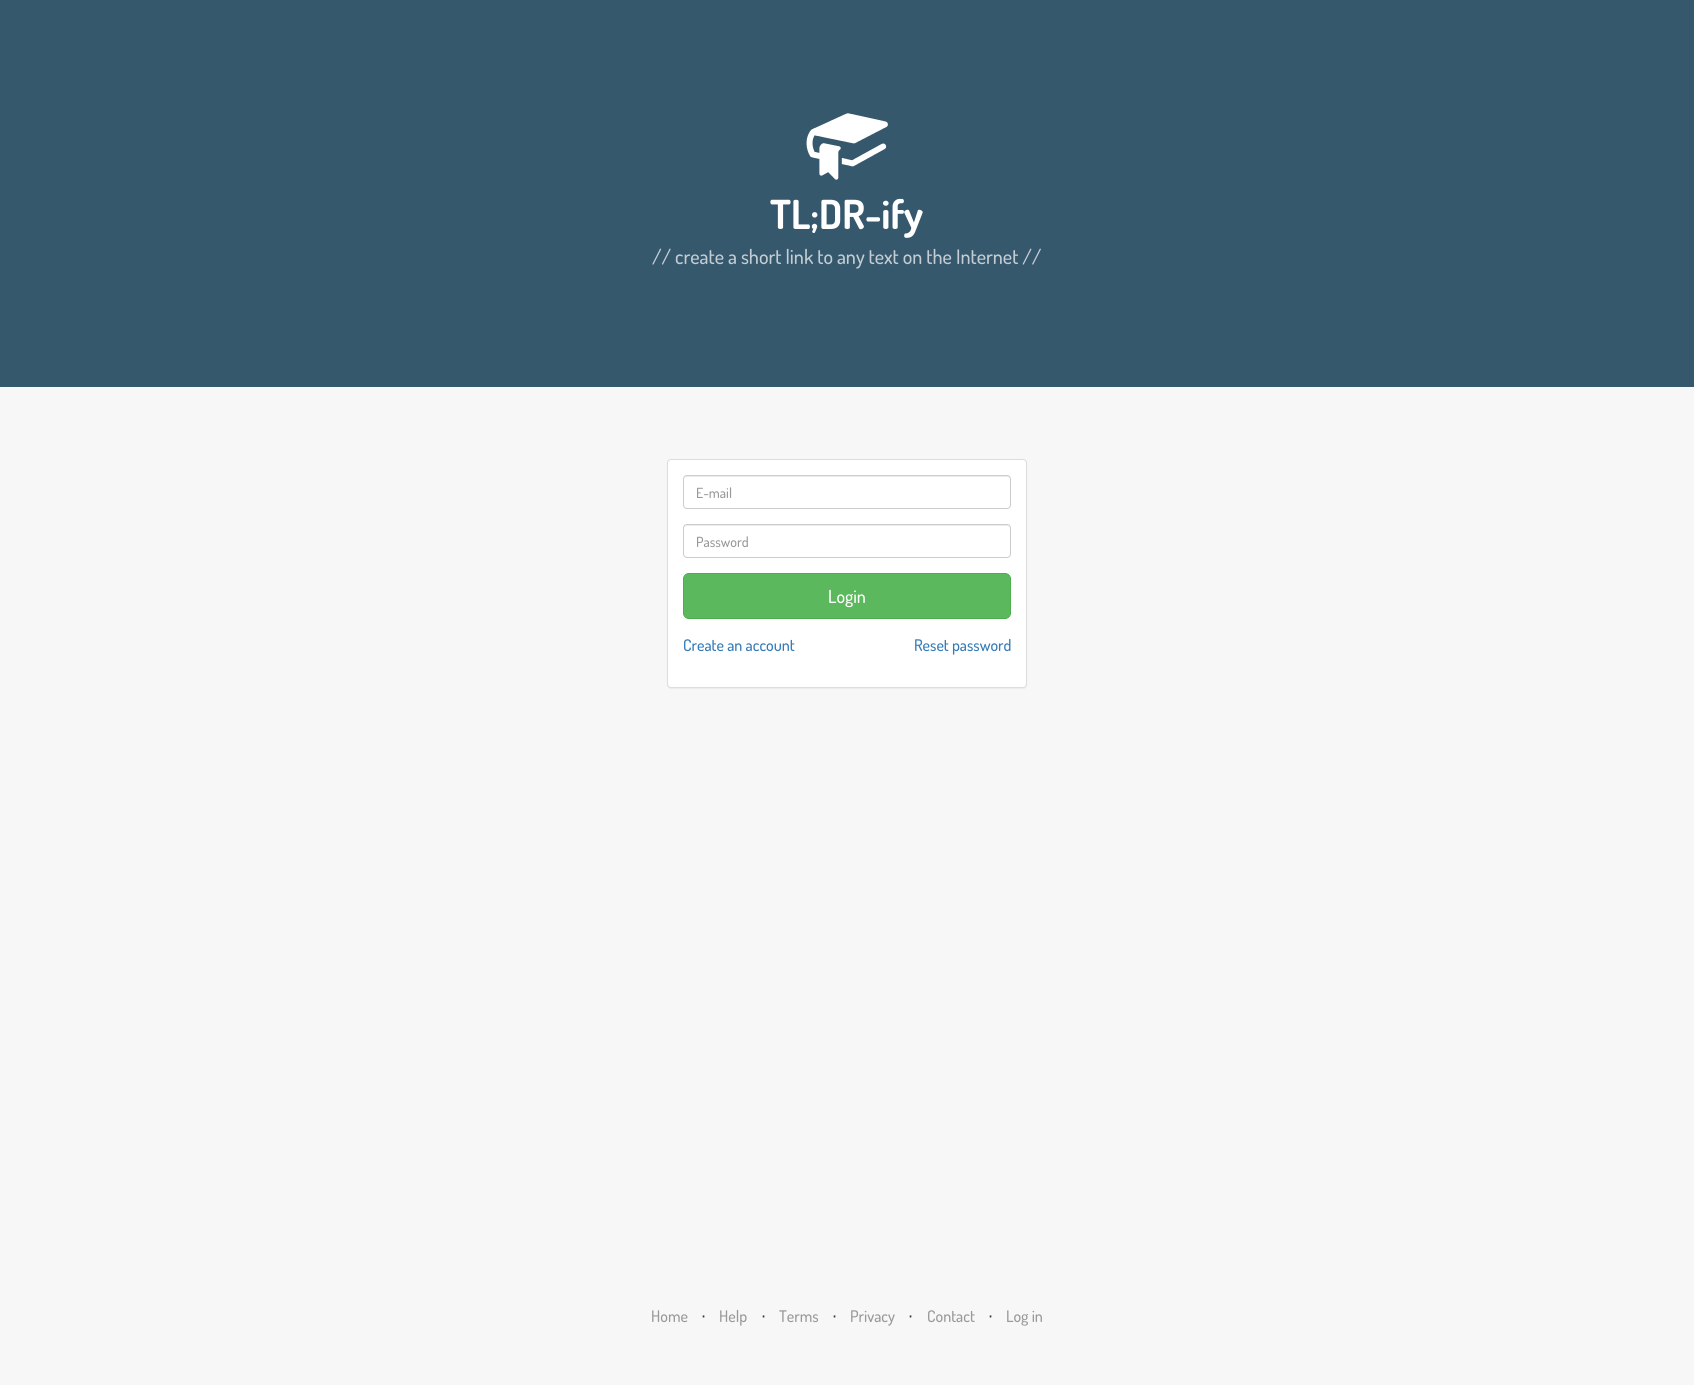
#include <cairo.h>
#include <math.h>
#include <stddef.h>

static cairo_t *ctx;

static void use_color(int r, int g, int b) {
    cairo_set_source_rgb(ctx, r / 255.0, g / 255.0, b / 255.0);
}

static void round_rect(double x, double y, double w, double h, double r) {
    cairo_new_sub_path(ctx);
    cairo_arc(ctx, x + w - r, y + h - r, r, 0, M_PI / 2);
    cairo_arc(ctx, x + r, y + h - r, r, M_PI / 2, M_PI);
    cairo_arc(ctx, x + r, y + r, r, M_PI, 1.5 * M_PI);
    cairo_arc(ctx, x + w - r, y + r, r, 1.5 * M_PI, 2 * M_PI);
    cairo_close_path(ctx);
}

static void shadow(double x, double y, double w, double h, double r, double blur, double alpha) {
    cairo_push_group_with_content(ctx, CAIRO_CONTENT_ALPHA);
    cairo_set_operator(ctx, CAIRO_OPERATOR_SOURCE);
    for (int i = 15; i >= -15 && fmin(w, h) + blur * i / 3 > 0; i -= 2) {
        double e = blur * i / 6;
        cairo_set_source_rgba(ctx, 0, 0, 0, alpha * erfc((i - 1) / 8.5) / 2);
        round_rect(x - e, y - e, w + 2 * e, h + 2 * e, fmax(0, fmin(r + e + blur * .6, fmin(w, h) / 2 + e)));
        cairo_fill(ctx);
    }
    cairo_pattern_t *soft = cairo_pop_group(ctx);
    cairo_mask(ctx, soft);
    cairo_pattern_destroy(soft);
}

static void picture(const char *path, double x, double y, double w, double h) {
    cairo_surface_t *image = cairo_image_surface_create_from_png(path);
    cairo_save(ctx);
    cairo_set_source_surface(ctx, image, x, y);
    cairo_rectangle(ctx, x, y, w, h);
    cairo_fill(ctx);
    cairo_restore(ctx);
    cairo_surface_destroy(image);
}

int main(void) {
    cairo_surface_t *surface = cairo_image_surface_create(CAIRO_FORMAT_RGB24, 1694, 1385);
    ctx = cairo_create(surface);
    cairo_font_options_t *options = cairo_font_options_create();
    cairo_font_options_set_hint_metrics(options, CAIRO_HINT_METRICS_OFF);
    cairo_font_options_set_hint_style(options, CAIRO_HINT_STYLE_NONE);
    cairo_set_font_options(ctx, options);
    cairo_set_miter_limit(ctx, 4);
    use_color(247, 247, 247);
    cairo_paint(ctx);
    use_color(54, 88, 109);
    cairo_rectangle(ctx, 0, 0, 1694, 387);
    cairo_fill(ctx);
    picture("img1.png", 806, 113, 82, 67);
    cairo_select_font_face(ctx, "Dosis", CAIRO_FONT_SLANT_NORMAL, CAIRO_FONT_WEIGHT_BOLD);
    cairo_set_font_size(ctx, 40);
    use_color(255, 255, 255);
    cairo_move_to(ctx, 770, 229);
    cairo_show_text(ctx, "TL;DR-ify");
    cairo_select_font_face(ctx, "Dosis Medium", CAIRO_FONT_SLANT_NORMAL, CAIRO_FONT_WEIGHT_NORMAL);
    cairo_set_font_size(ctx, 20);
    use_color(195, 205, 211);
    cairo_move_to(ctx, 652, 264);
    cairo_show_text(ctx, "// create a short link to any text on the Internet //");
    use_color(0, 0, 0);
    shadow(667, 460, 360, 229, 4, 0.5, 0.05);
    use_color(255, 255, 255);
    round_rect(667.5, 459.5, 359, 228, 3.5);
    cairo_fill_preserve(ctx);
    use_color(221, 221, 221);
    cairo_set_line_width(ctx, 1);
    cairo_stroke(ctx);
    use_color(236, 236, 236);
    cairo_new_path(ctx);
    cairo_move_to(ctx, 687, 477);
    cairo_line_to(ctx, 1007, 477);
    cairo_curve_to(ctx, 1009, 477, 1010, 478, 1010, 480);
    cairo_curve_to(ctx, 1010, 478, 1009, 476, 1007, 476);
    cairo_line_to(ctx, 687, 476);
    cairo_curve_to(ctx, 685, 476, 684, 478, 684, 480);
    cairo_curve_to(ctx, 684, 478, 685, 477, 687, 477);
    cairo_close_path(ctx);
    cairo_fill(ctx);
    round_rect(683.5, 475.5, 327, 33, 3.5);
    use_color(204, 204, 204);
    cairo_stroke(ctx);
    cairo_set_font_size(ctx, 14);
    use_color(153, 153, 153);
    cairo_move_to(ctx, 696, 498);
    cairo_show_text(ctx, "E-mail");
    use_color(236, 236, 236);
    cairo_new_path(ctx);
    cairo_move_to(ctx, 687, 526);
    cairo_line_to(ctx, 1007, 526);
    cairo_curve_to(ctx, 1009, 526, 1010, 527, 1010, 529);
    cairo_curve_to(ctx, 1010, 527, 1009, 525, 1007, 525);
    cairo_line_to(ctx, 687, 525);
    cairo_curve_to(ctx, 685, 525, 684, 527, 684, 529);
    cairo_curve_to(ctx, 684, 527, 685, 526, 687, 526);
    cairo_close_path(ctx);
    cairo_fill(ctx);
    round_rect(683.5, 524.5, 327, 33, 3.5);
    use_color(204, 204, 204);
    cairo_stroke(ctx);
    use_color(153, 153, 153);
    cairo_move_to(ctx, 696, 547);
    cairo_show_text(ctx, "Password");
    use_color(92, 184, 92);
    round_rect(683.5, 573.5, 327, 45, 5.5);
    cairo_fill_preserve(ctx);
    use_color(76, 174, 76);
    cairo_stroke(ctx);
    cairo_set_font_size(ctx, 18);
    use_color(255, 255, 255);
    cairo_move_to(ctx, 828, 603);
    cairo_show_text(ctx, "Login");
    cairo_set_font_size(ctx, 16);
    use_color(51, 122, 183);
    cairo_move_to(ctx, 683, 651);
    cairo_show_text(ctx, "Create an account");
    cairo_move_to(ctx, 914, 651);
    cairo_show_text(ctx, "Reset password");
    use_color(153, 153, 153);
    cairo_move_to(ctx, 651, 1322);
    cairo_show_text(ctx, "Home");
    cairo_select_font_face(ctx, "DejaVu Sans", CAIRO_FONT_SLANT_NORMAL, CAIRO_FONT_WEIGHT_NORMAL);
    use_color(51, 51, 51);
    cairo_move_to(ctx, 701, 1322);
    cairo_show_text(ctx, "⋅");
    cairo_select_font_face(ctx, "Dosis Medium", CAIRO_FONT_SLANT_NORMAL, CAIRO_FONT_WEIGHT_NORMAL);
    use_color(153, 153, 153);
    cairo_move_to(ctx, 719, 1322);
    cairo_show_text(ctx, "Help");
    cairo_select_font_face(ctx, "DejaVu Sans", CAIRO_FONT_SLANT_NORMAL, CAIRO_FONT_WEIGHT_NORMAL);
    use_color(51, 51, 51);
    cairo_move_to(ctx, 761, 1322);
    cairo_show_text(ctx, "⋅");
    cairo_select_font_face(ctx, "Dosis Medium", CAIRO_FONT_SLANT_NORMAL, CAIRO_FONT_WEIGHT_NORMAL);
    use_color(153, 153, 153);
    cairo_move_to(ctx, 779, 1322);
    cairo_show_text(ctx, "Terms");
    cairo_select_font_face(ctx, "DejaVu Sans", CAIRO_FONT_SLANT_NORMAL, CAIRO_FONT_WEIGHT_NORMAL);
    use_color(51, 51, 51);
    cairo_move_to(ctx, 832, 1322);
    cairo_show_text(ctx, "⋅");
    cairo_select_font_face(ctx, "Dosis Medium", CAIRO_FONT_SLANT_NORMAL, CAIRO_FONT_WEIGHT_NORMAL);
    use_color(153, 153, 153);
    cairo_move_to(ctx, 850, 1322);
    cairo_show_text(ctx, "Privacy");
    cairo_select_font_face(ctx, "DejaVu Sans", CAIRO_FONT_SLANT_NORMAL, CAIRO_FONT_WEIGHT_NORMAL);
    use_color(51, 51, 51);
    cairo_move_to(ctx, 908, 1322);
    cairo_show_text(ctx, "⋅");
    cairo_select_font_face(ctx, "Dosis Medium", CAIRO_FONT_SLANT_NORMAL, CAIRO_FONT_WEIGHT_NORMAL);
    use_color(153, 153, 153);
    cairo_move_to(ctx, 927, 1322);
    cairo_show_text(ctx, "Contact");
    cairo_select_font_face(ctx, "DejaVu Sans", CAIRO_FONT_SLANT_NORMAL, CAIRO_FONT_WEIGHT_NORMAL);
    use_color(51, 51, 51);
    cairo_move_to(ctx, 988, 1322);
    cairo_show_text(ctx, "⋅");
    cairo_select_font_face(ctx, "Dosis Medium", CAIRO_FONT_SLANT_NORMAL, CAIRO_FONT_WEIGHT_NORMAL);
    use_color(153, 153, 153);
    cairo_move_to(ctx, 1006, 1322);
    cairo_show_text(ctx, "Log in");
    cairo_surface_write_to_png(surface, "result.png");
    cairo_font_options_destroy(options);
    cairo_destroy(ctx);
    cairo_surface_destroy(surface);
    return 0;
}
